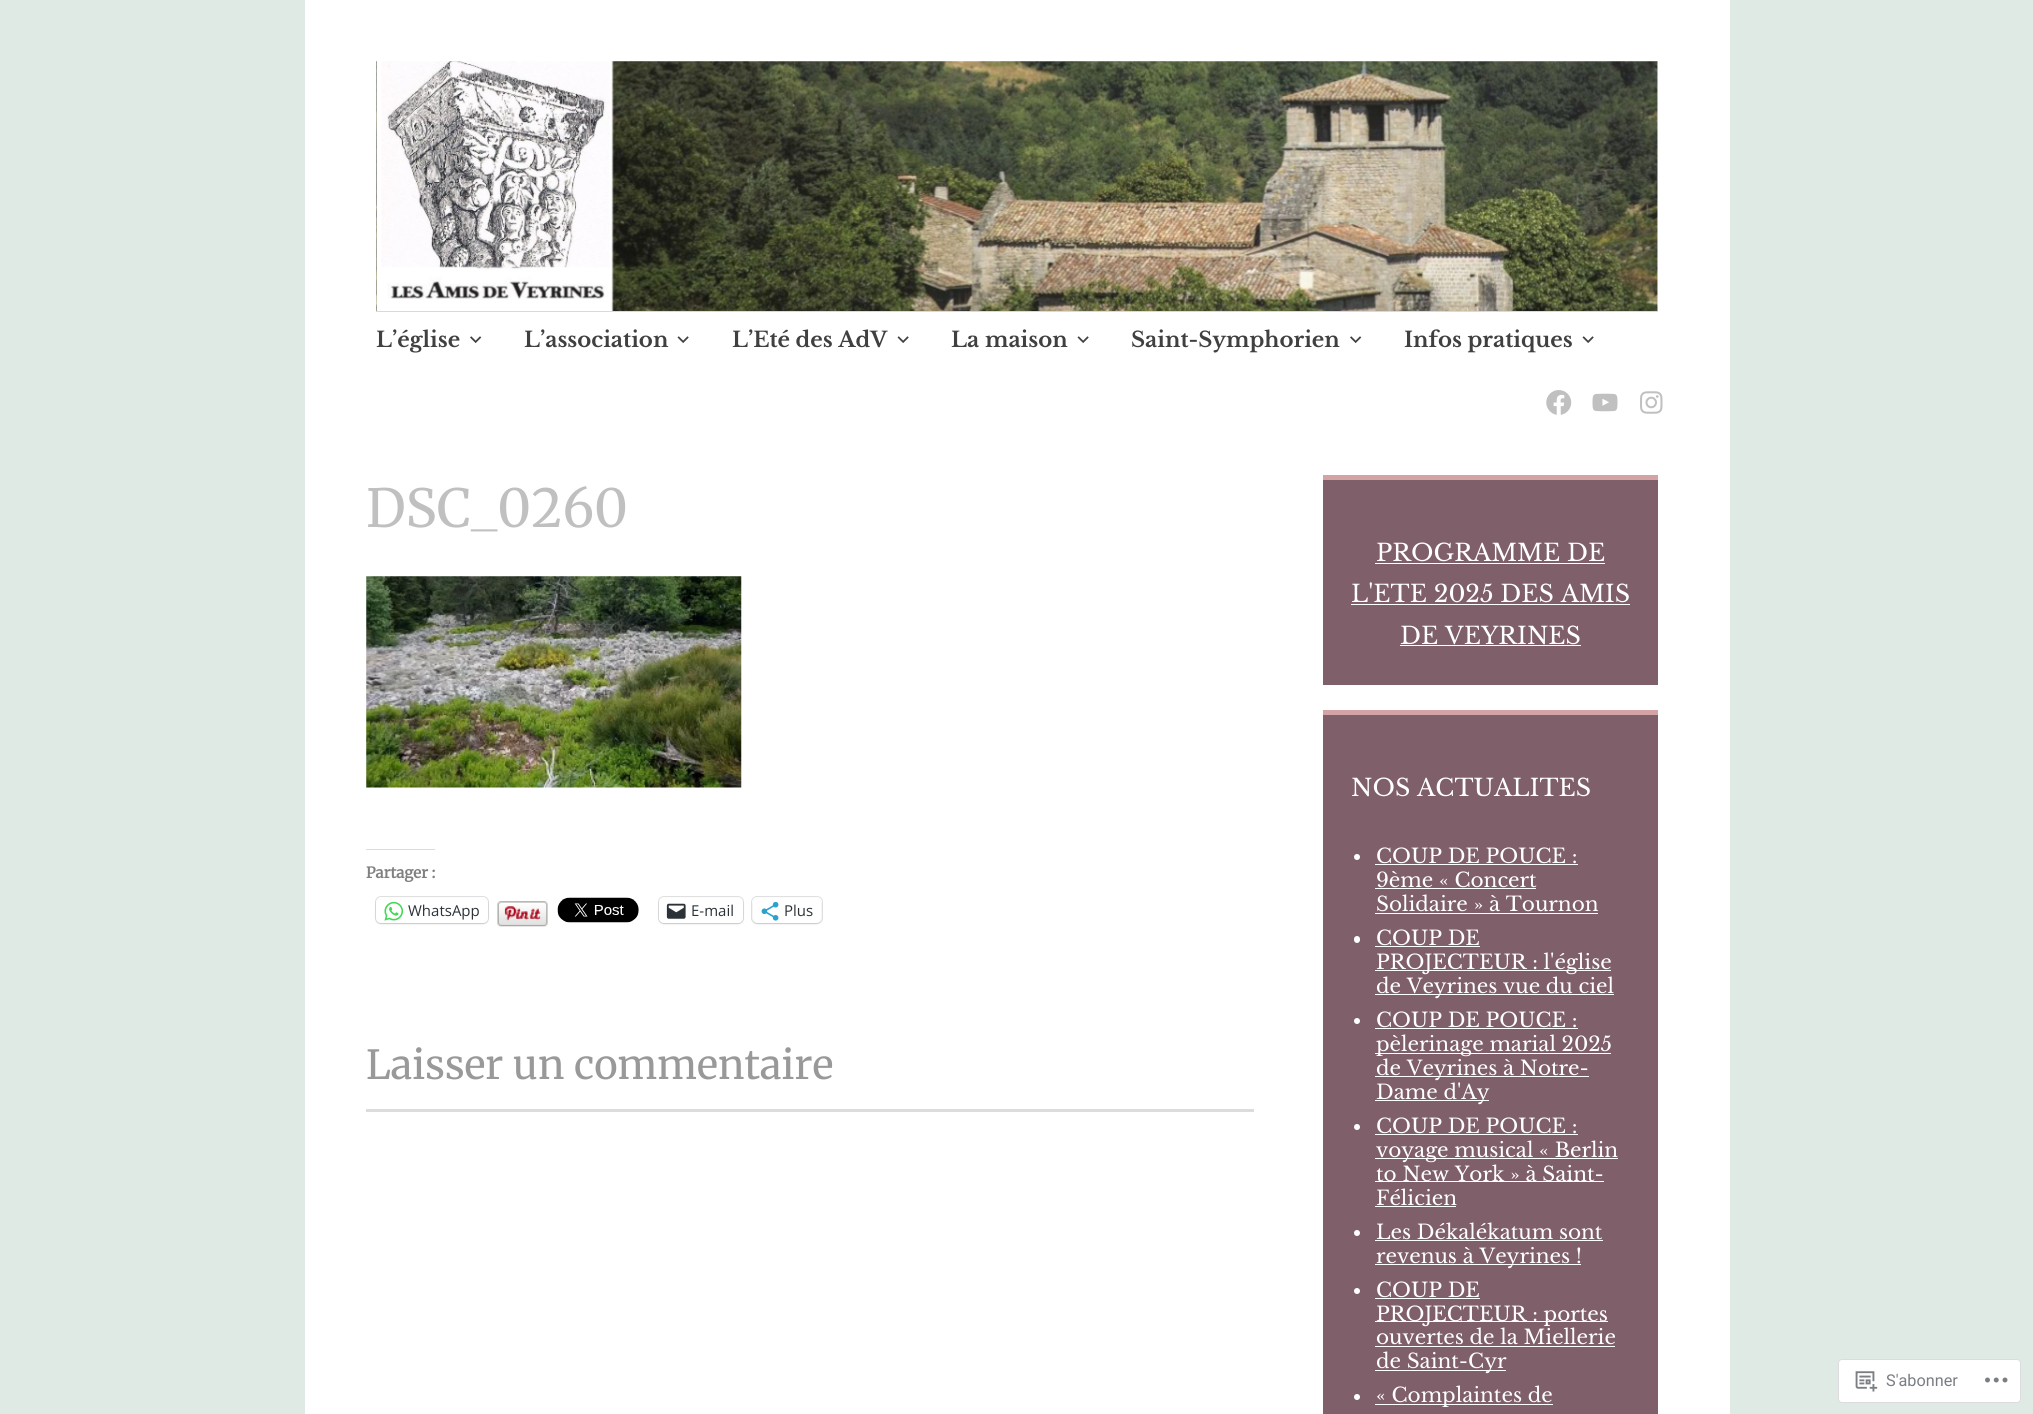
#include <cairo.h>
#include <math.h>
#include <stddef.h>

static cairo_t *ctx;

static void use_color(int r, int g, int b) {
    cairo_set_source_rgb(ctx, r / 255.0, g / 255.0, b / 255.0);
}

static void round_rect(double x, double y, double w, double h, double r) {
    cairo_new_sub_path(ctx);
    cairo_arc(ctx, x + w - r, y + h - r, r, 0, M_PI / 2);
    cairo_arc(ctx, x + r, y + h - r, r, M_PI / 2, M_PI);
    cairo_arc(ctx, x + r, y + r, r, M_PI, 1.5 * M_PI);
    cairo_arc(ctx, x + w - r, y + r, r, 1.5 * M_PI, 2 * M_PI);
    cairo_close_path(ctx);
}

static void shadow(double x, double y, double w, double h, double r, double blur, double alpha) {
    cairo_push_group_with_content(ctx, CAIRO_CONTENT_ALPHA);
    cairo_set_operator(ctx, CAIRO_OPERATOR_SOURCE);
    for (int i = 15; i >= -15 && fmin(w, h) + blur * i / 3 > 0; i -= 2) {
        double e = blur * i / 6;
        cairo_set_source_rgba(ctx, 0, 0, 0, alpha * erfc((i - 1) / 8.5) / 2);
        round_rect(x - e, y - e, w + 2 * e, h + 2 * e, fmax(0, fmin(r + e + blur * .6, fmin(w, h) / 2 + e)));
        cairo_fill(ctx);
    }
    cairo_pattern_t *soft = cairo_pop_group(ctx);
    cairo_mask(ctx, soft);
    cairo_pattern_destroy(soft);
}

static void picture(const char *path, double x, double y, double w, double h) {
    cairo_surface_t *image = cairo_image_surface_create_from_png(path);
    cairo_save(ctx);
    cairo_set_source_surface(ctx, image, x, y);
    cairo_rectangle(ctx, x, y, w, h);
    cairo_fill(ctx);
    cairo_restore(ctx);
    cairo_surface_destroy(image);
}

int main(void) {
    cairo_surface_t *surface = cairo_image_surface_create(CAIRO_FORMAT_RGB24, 2033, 1414);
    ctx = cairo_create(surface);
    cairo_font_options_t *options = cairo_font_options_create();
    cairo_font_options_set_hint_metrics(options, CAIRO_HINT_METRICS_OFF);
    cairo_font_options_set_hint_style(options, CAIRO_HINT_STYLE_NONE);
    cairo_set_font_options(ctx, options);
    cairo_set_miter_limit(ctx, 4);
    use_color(223, 234, 228);
    cairo_paint(ctx);
    use_color(255, 255, 255);
    cairo_rectangle(ctx, 305, 0, 1425, 1414);
    cairo_fill(ctx);
    picture("img1.png", 376, 61, 1282, 250);
    use_color(217, 217, 217);
    cairo_rectangle(ctx, 376, 311, 1282, 1);
    cairo_fill(ctx);
    cairo_select_font_face(ctx, "Libre Baskerville", CAIRO_FONT_SLANT_NORMAL, CAIRO_FONT_WEIGHT_BOLD);
    cairo_set_font_size(ctx, 21.25);
    use_color(64, 64, 64);
    cairo_move_to(ctx, 376, 347);
    cairo_show_text(ctx, "L’église");
    picture("img2.png", 470, 336, 12, 7);
    cairo_move_to(ctx, 524, 347);
    cairo_show_text(ctx, "L’association");
    picture("img3.png", 677, 336, 12, 7);
    cairo_move_to(ctx, 732, 347);
    cairo_show_text(ctx, "L’Eté des AdV");
    picture("img3.png", 897, 336, 12, 7);
    cairo_move_to(ctx, 951, 347);
    cairo_show_text(ctx, "La maison");
    picture("img3.png", 1077, 336, 12, 7);
    cairo_move_to(ctx, 1131, 347);
    cairo_show_text(ctx, "Saint-Symphorien");
    picture("img2.png", 1350, 336, 12, 7);
    cairo_move_to(ctx, 1404, 347);
    cairo_show_text(ctx, "Infos pratiques");
    picture("img3.png", 1582, 336, 12, 7);
    picture("img4.png", 1546, 390, 26, 25);
    picture("img5.png", 1592, 393, 26, 19);
    picture("img6.png", 1640, 391, 23, 23);
    cairo_select_font_face(ctx, "Merriweather Light", CAIRO_FONT_SLANT_NORMAL, CAIRO_FONT_WEIGHT_NORMAL);
    cairo_set_font_size(ctx, 52.5);
    use_color(192, 192, 192);
    cairo_move_to(ctx, 366, 527);
    cairo_show_text(ctx, "DSC_0260");
    picture("img7.png", 366, 576, 376, 212);
    use_color(220, 220, 222);
    cairo_rectangle(ctx, 366, 849, 69, 1);
    cairo_fill(ctx);
    cairo_select_font_face(ctx, "Merriweather", CAIRO_FONT_SLANT_NORMAL, CAIRO_FONT_WEIGHT_BOLD);
    cairo_set_font_size(ctx, 15);
    use_color(128, 128, 128);
    cairo_move_to(ctx, 366, 878);
    cairo_show_text(ctx, "Partager :");
    round_rect(375.5, 896.5, 113, 27, 5.5);
    use_color(224, 224, 224);
    cairo_set_line_width(ctx, 1);
    cairo_stroke(ctx);
    use_color(0, 0, 0);
    shadow(376, 899, 112, 25, 5, 1, 0.12);
    use_color(255, 255, 255);
    round_rect(376, 898, 112, 25, 5);
    cairo_fill(ctx);
    picture("img8.png", 384, 901, 20, 20);
    cairo_select_font_face(ctx, "Open Sans", CAIRO_FONT_SLANT_NORMAL, CAIRO_FONT_WEIGHT_NORMAL);
    use_color(44, 51, 56);
    cairo_move_to(ctx, 408, 916);
    cairo_show_text(ctx, "WhatsApp");
    picture("img9.png", 497, 901, 51, 26);
    picture("img10.png", 557, 897, 82, 26);
    round_rect(658.5, 896.5, 85, 27, 5.5);
    use_color(224, 224, 224);
    cairo_stroke(ctx);
    use_color(0, 0, 0);
    shadow(659, 899, 84, 25, 5, 1, 0.12);
    use_color(255, 255, 255);
    round_rect(659, 898, 84, 25, 5);
    cairo_fill(ctx);
    picture("img11.png", 666, 903, 20, 16);
    use_color(44, 51, 56);
    cairo_move_to(ctx, 691, 916);
    cairo_show_text(ctx, "E-mail");
    round_rect(751.5, 896.5, 71, 27, 5.5);
    use_color(224, 224, 224);
    cairo_stroke(ctx);
    use_color(0, 0, 0);
    shadow(753, 899, 68, 25, 5, 1, 0.12);
    use_color(255, 255, 255);
    round_rect(753, 898, 68, 25, 5);
    cairo_fill(ctx);
    picture("img12.png", 761, 901, 18, 20);
    use_color(44, 51, 56);
    cairo_move_to(ctx, 784, 916);
    cairo_show_text(ctx, "Plus");
    cairo_select_font_face(ctx, "Merriweather Light", CAIRO_FONT_SLANT_NORMAL, CAIRO_FONT_WEIGHT_NORMAL);
    cairo_set_font_size(ctx, 40);
    use_color(153, 153, 153);
    cairo_move_to(ctx, 366, 1079);
    cairo_show_text(ctx, "Laisser un commentaire");
    use_color(220, 220, 222);
    cairo_rectangle(ctx, 366, 1109, 888, 3);
    cairo_fill(ctx);
    use_color(126, 95, 106);
    cairo_rectangle(ctx, 1323, 480, 335, 205);
    cairo_fill(ctx);
    use_color(211, 163, 165);
    cairo_rectangle(ctx, 1323, 475, 335, 5);
    cairo_fill(ctx);
    cairo_select_font_face(ctx, "Libre Baskerville", CAIRO_FONT_SLANT_NORMAL, CAIRO_FONT_WEIGHT_NORMAL);
    cairo_set_font_size(ctx, 23.75);
    use_color(255, 255, 255);
    cairo_move_to(ctx, 1376, 561);
    cairo_show_text(ctx, "PROGRAMME DE");
    cairo_rectangle(ctx, 1375, 563, 230, 1);
    cairo_fill(ctx);
    cairo_move_to(ctx, 1351, 602);
    cairo_show_text(ctx, "L'ETE 2025 DES AMIS");
    cairo_rectangle(ctx, 1351, 604, 279, 1);
    cairo_fill(ctx);
    cairo_move_to(ctx, 1400, 644);
    cairo_show_text(ctx, "DE VEYRINES");
    cairo_rectangle(ctx, 1400, 645, 181, 1);
    cairo_fill(ctx);
    use_color(126, 95, 106);
    cairo_rectangle(ctx, 1323, 715, 335, 699);
    cairo_fill(ctx);
    use_color(211, 163, 165);
    cairo_rectangle(ctx, 1323, 710, 335, 5);
    cairo_fill(ctx);
    use_color(255, 255, 255);
    cairo_move_to(ctx, 1351, 796);
    cairo_show_text(ctx, "NOS ACTUALITES");
    cairo_new_path(ctx);
    cairo_arc(ctx, 1357, 857, 3, 0, 2 * M_PI);
    cairo_fill(ctx);
    cairo_set_font_size(ctx, 20);
    cairo_move_to(ctx, 1376, 863);
    cairo_show_text(ctx, "COUP DE POUCE :");
    cairo_rectangle(ctx, 1375, 864, 203, 1);
    cairo_fill(ctx);
    cairo_move_to(ctx, 1376, 887);
    cairo_show_text(ctx, "9ème « Concert");
    cairo_rectangle(ctx, 1375, 888, 161, 1);
    cairo_fill(ctx);
    cairo_move_to(ctx, 1376, 911);
    cairo_show_text(ctx, "Solidaire » à Tournon");
    cairo_rectangle(ctx, 1375, 913, 223, 1);
    cairo_fill(ctx);
    round_rect(1354, 936, 6, 7, 3);
    cairo_fill(ctx);
    cairo_move_to(ctx, 1376, 945);
    cairo_show_text(ctx, "COUP DE");
    cairo_rectangle(ctx, 1375, 946, 105, 1);
    cairo_fill(ctx);
    cairo_rectangle(ctx, 1375, 970, 236, 1);
    cairo_fill(ctx);
    cairo_move_to(ctx, 1376, 969);
    cairo_show_text(ctx, "PROJECTEUR : l'église");
    cairo_rectangle(ctx, 1375, 994, 239, 1);
    cairo_fill(ctx);
    cairo_move_to(ctx, 1376, 993);
    cairo_show_text(ctx, "de Veyrines vue du ciel");
    cairo_new_path(ctx);
    cairo_arc(ctx, 1357, 1021, 3, 0, 2 * M_PI);
    cairo_fill(ctx);
    cairo_move_to(ctx, 1376, 1027);
    cairo_show_text(ctx, "COUP DE POUCE :");
    cairo_rectangle(ctx, 1375, 1028, 203, 1);
    cairo_fill(ctx);
    cairo_rectangle(ctx, 1375, 1053, 236, 1);
    cairo_fill(ctx);
    cairo_move_to(ctx, 1376, 1051);
    cairo_show_text(ctx, "pèlerinage marial 2025");
    cairo_rectangle(ctx, 1375, 1076, 214, 1);
    cairo_fill(ctx);
    cairo_move_to(ctx, 1376, 1075);
    cairo_show_text(ctx, "de Veyrines à Notre-");
    cairo_rectangle(ctx, 1375, 1100, 114, 1);
    cairo_fill(ctx);
    cairo_move_to(ctx, 1376, 1099);
    cairo_show_text(ctx, "Dame d'Ay");
    cairo_new_path(ctx);
    cairo_arc(ctx, 1357, 1127, 3, 0, 2 * M_PI);
    cairo_fill(ctx);
    cairo_move_to(ctx, 1376, 1133);
    cairo_show_text(ctx, "COUP DE POUCE :");
    cairo_rectangle(ctx, 1375, 1134, 203, 1);
    cairo_fill(ctx);
    cairo_rectangle(ctx, 1375, 1158, 243, 1);
    cairo_fill(ctx);
    cairo_move_to(ctx, 1376, 1157);
    cairo_show_text(ctx, "voyage musical « Berlin");
    cairo_rectangle(ctx, 1375, 1181, 229, 1);
    cairo_fill(ctx);
    cairo_move_to(ctx, 1376, 1181);
    cairo_show_text(ctx, "to New York » à Saint-");
    cairo_move_to(ctx, 1376, 1205);
    cairo_show_text(ctx, "Félicien");
    cairo_rectangle(ctx, 1375, 1206, 81, 1);
    cairo_fill(ctx);
    cairo_arc(ctx, 1357, 1233, 3, 0, 2 * M_PI);
    cairo_fill(ctx);
    cairo_move_to(ctx, 1376, 1239);
    cairo_show_text(ctx, "Les Dékalékatum sont");
    cairo_rectangle(ctx, 1375, 1240, 228, 1);
    cairo_fill(ctx);
    cairo_rectangle(ctx, 1375, 1264, 206, 1);
    cairo_fill(ctx);
    cairo_move_to(ctx, 1376, 1263);
    cairo_show_text(ctx, "revenus à Veyrines !");
    cairo_new_path(ctx);
    cairo_arc(ctx, 1357, 1291, 3, 0, 2 * M_PI);
    cairo_fill(ctx);
    cairo_move_to(ctx, 1376, 1297);
    cairo_show_text(ctx, "COUP DE");
    cairo_rectangle(ctx, 1375, 1298, 105, 1);
    cairo_fill(ctx);
    cairo_rectangle(ctx, 1375, 1321, 233, 1);
    cairo_fill(ctx);
    cairo_move_to(ctx, 1376, 1321);
    cairo_show_text(ctx, "PROJECTEUR : portes");
    cairo_move_to(ctx, 1376, 1344);
    cairo_show_text(ctx, "ouvertes de la Miellerie");
    cairo_rectangle(ctx, 1375, 1346, 240, 1);
    cairo_fill(ctx);
    cairo_rectangle(ctx, 1375, 1370, 131, 1);
    cairo_fill(ctx);
    cairo_move_to(ctx, 1376, 1368);
    cairo_show_text(ctx, "de Saint-Cyr");
    cairo_new_path(ctx);
    cairo_arc(ctx, 1357, 1397, 3, 0, 2 * M_PI);
    cairo_fill(ctx);
    cairo_rectangle(ctx, 1375, 1404, 178, 1);
    cairo_fill(ctx);
    cairo_move_to(ctx, 1376, 1402);
    cairo_show_text(ctx, "« Complaintes de");
    use_color(254, 255, 254);
    round_rect(1838.5, 1359.5, 182, 43, 3.5);
    cairo_fill_preserve(ctx);
    use_color(220, 220, 222);
    cairo_stroke(ctx);
    picture("img13.png", 1855, 1371, 23, 21);
    cairo_select_font_face(ctx, "Roboto", CAIRO_FONT_SLANT_NORMAL, CAIRO_FONT_WEIGHT_NORMAL);
    cairo_set_font_size(ctx, 16.25);
    use_color(122, 126, 132);
    cairo_move_to(ctx, 1886, 1386);
    cairo_show_text(ctx, "S'abonner");
    picture("img14.png", 1985, 1377, 23, 6);
    cairo_surface_write_to_png(surface, "result.png");
    cairo_font_options_destroy(options);
    cairo_destroy(ctx);
    cairo_surface_destroy(surface);
    return 0;
}
